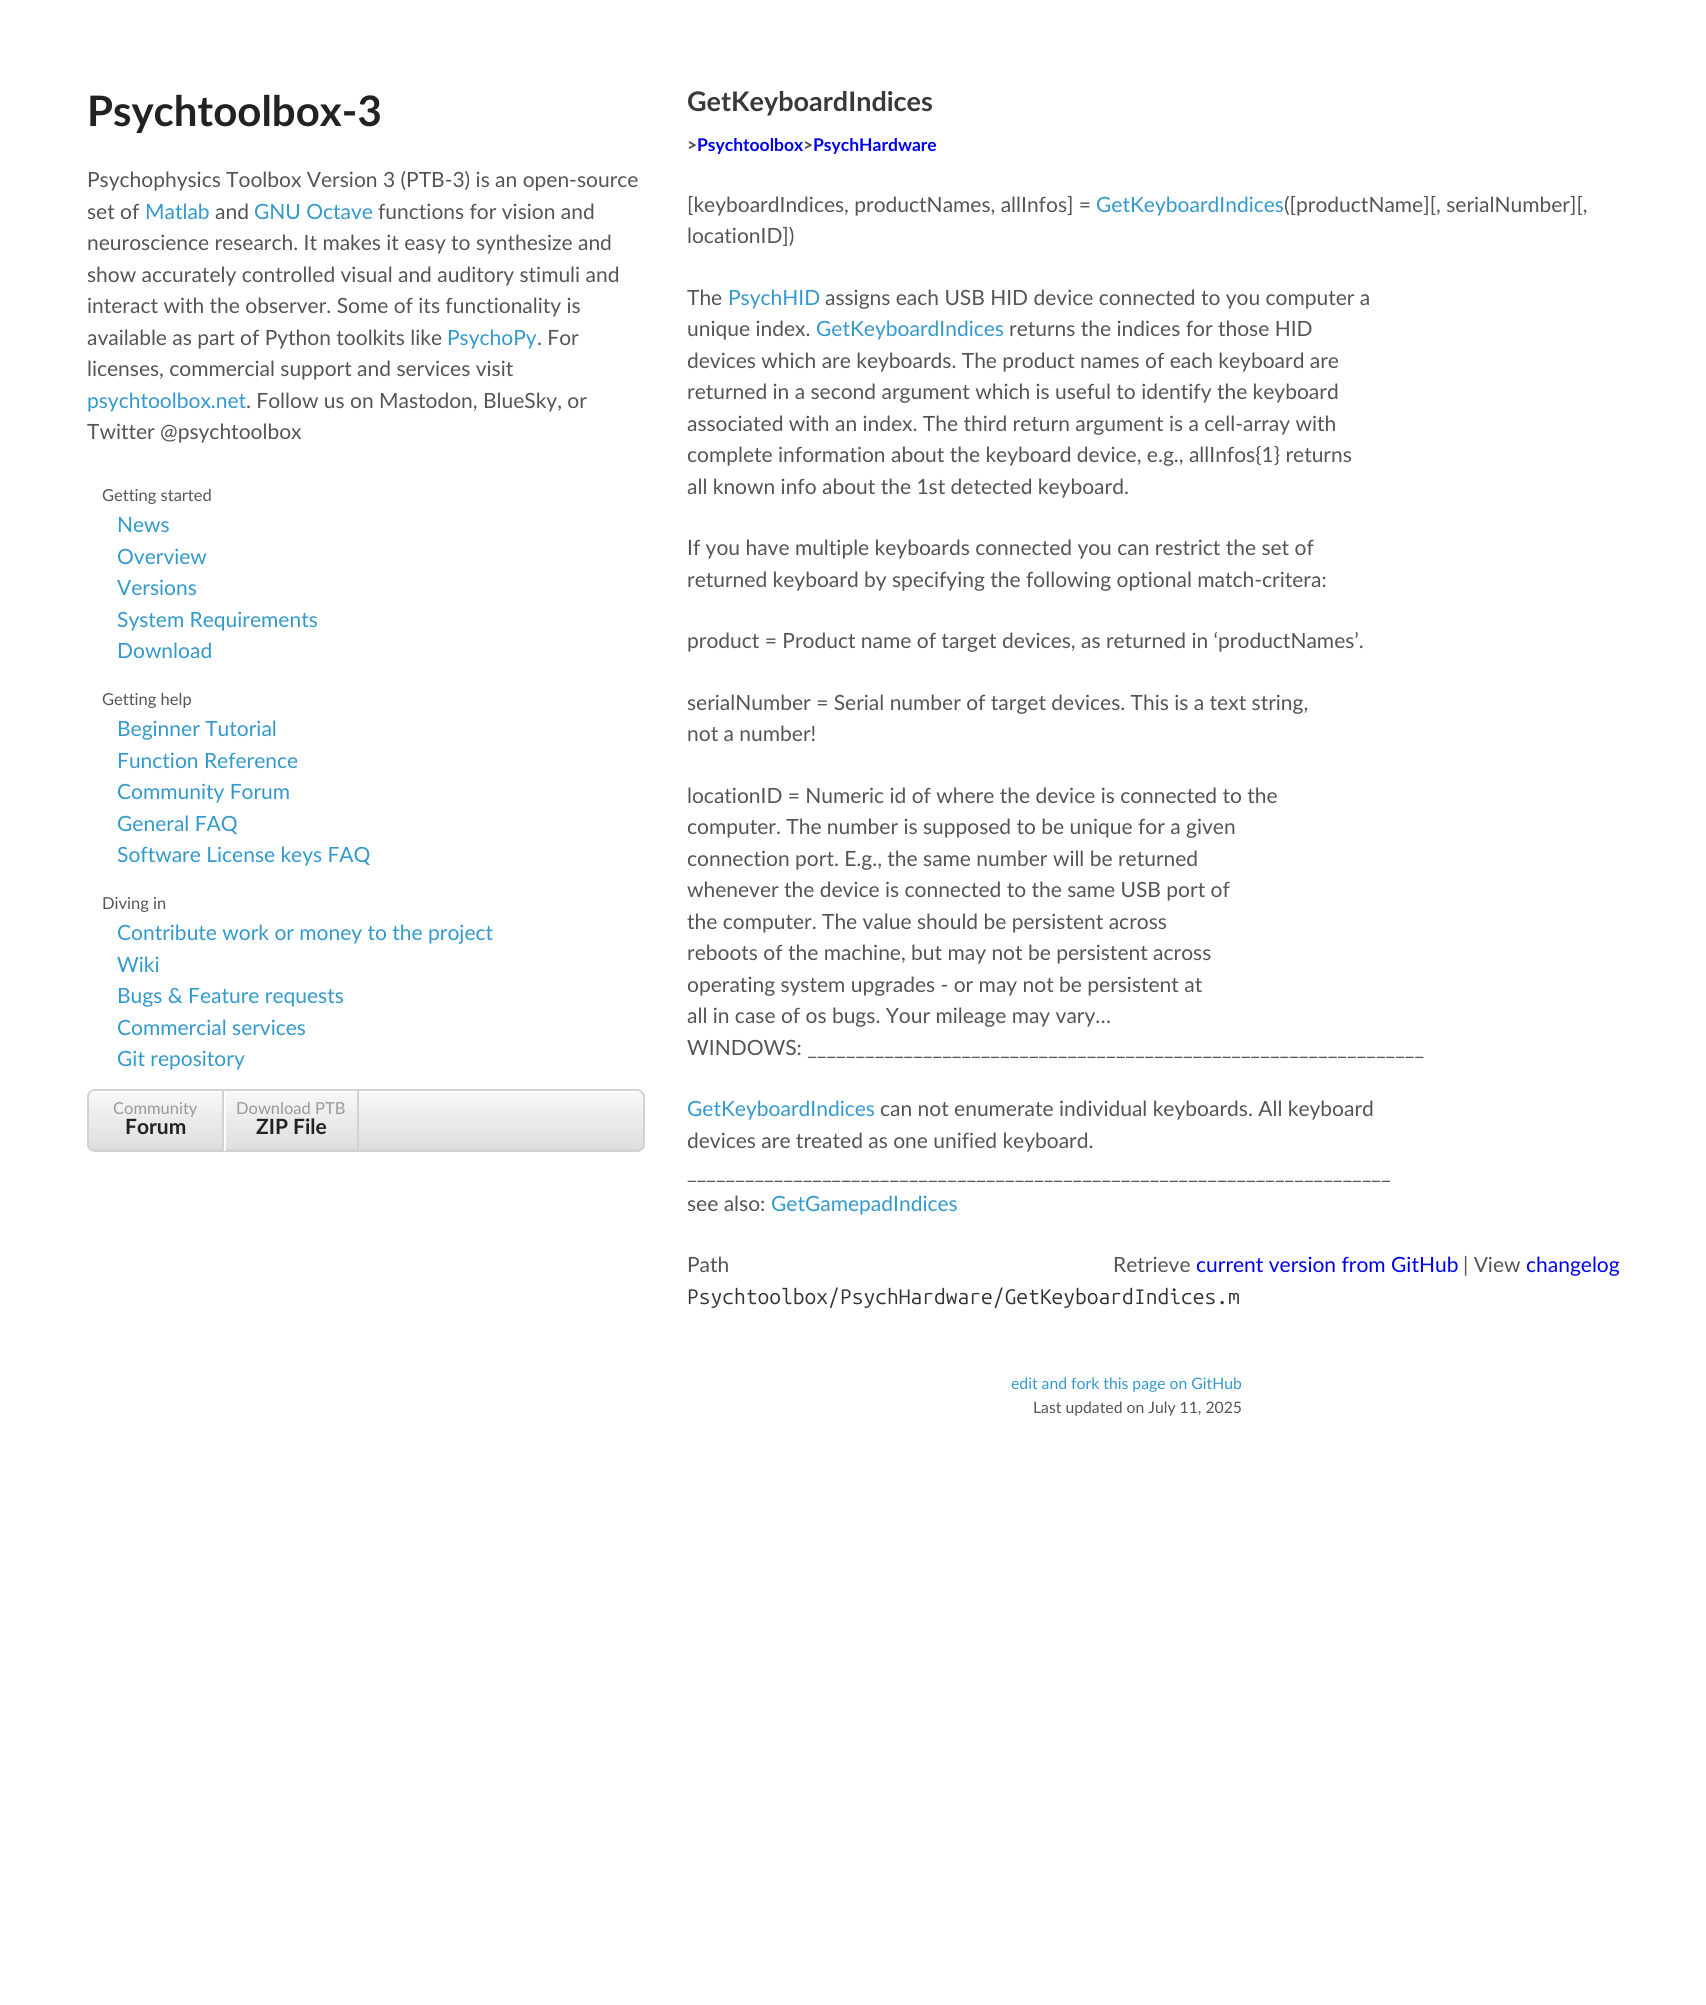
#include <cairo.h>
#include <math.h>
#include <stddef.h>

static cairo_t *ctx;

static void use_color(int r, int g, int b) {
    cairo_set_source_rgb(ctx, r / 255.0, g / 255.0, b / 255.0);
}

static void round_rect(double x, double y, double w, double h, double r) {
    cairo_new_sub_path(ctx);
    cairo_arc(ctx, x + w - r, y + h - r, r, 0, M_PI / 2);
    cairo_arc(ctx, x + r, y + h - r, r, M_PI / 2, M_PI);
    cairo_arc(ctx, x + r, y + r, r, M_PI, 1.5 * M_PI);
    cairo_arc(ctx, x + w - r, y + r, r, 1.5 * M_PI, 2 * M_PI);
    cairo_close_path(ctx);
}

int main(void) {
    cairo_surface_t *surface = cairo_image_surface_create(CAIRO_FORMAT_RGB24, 1706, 2005);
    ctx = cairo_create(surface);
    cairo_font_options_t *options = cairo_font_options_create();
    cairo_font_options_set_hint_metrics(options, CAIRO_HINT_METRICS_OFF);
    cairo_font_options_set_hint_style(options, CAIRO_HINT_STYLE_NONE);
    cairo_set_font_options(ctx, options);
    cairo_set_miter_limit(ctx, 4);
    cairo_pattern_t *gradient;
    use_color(255, 255, 255);
    cairo_paint(ctx);
    cairo_select_font_face(ctx, "Lato", CAIRO_FONT_SLANT_NORMAL, CAIRO_FONT_WEIGHT_BOLD);
    cairo_set_font_size(ctx, 42);
    use_color(34, 34, 34);
    cairo_move_to(ctx, 87, 126);
    cairo_show_text(ctx, "Psychtoolbox-3");
    cairo_select_font_face(ctx, "Lato", CAIRO_FONT_SLANT_NORMAL, CAIRO_FONT_WEIGHT_NORMAL);
    cairo_set_font_size(ctx, 21);
    use_color(85, 85, 85);
    cairo_move_to(ctx, 87, 187);
    cairo_show_text(ctx, "Psychophysics Toolbox Version 3 (PTB-3) is an open-source");
    cairo_move_to(ctx, 87, 219);
    cairo_show_text(ctx, "set of");
    use_color(51, 153, 204);
    cairo_move_to(ctx, 145, 219);
    cairo_show_text(ctx, "Matlab");
    use_color(85, 85, 85);
    cairo_move_to(ctx, 215, 219);
    cairo_show_text(ctx, "and");
    use_color(51, 153, 204);
    cairo_move_to(ctx, 254, 219);
    cairo_show_text(ctx, "GNU Octave");
    use_color(85, 85, 85);
    cairo_move_to(ctx, 378, 219);
    cairo_show_text(ctx, "functions for vision and");
    cairo_move_to(ctx, 87, 250);
    cairo_show_text(ctx, "neuroscience research. It makes it easy to synthesize and");
    cairo_move_to(ctx, 87, 282);
    cairo_show_text(ctx, "show accurately controlled visual and auditory stimuli and");
    cairo_move_to(ctx, 87, 313);
    cairo_show_text(ctx, "interact with the observer. Some of its functionality is");
    cairo_move_to(ctx, 87, 345);
    cairo_show_text(ctx, "available as part of Python toolkits like");
    use_color(51, 153, 204);
    cairo_move_to(ctx, 447, 345);
    cairo_show_text(ctx, "PsychoPy");
    use_color(85, 85, 85);
    cairo_move_to(ctx, 537, 345);
    cairo_show_text(ctx, ". For");
    cairo_move_to(ctx, 87, 376);
    cairo_show_text(ctx, "licenses, commercial support and services visit");
    use_color(51, 153, 204);
    cairo_move_to(ctx, 87, 408);
    cairo_show_text(ctx, "psychtoolbox.net");
    use_color(85, 85, 85);
    cairo_move_to(ctx, 246, 408);
    cairo_show_text(ctx, ". Follow us on Mastodon, BlueSky, or");
    cairo_move_to(ctx, 87, 439);
    cairo_show_text(ctx, "Twitter @psychtoolbox");
    cairo_set_font_size(ctx, 16.5);
    cairo_move_to(ctx, 102, 501);
    cairo_show_text(ctx, "Getting started");
    cairo_set_font_size(ctx, 21);
    use_color(51, 153, 204);
    cairo_move_to(ctx, 117, 532);
    cairo_show_text(ctx, "News");
    cairo_move_to(ctx, 117, 564);
    cairo_show_text(ctx, "Overview");
    cairo_move_to(ctx, 117, 595);
    cairo_show_text(ctx, "Versions");
    cairo_move_to(ctx, 117, 627);
    cairo_show_text(ctx, "System Requirements");
    cairo_move_to(ctx, 117, 658);
    cairo_show_text(ctx, "Download");
    cairo_set_font_size(ctx, 16.5);
    use_color(85, 85, 85);
    cairo_move_to(ctx, 102, 705);
    cairo_show_text(ctx, "Getting help");
    cairo_set_font_size(ctx, 21);
    use_color(51, 153, 204);
    cairo_move_to(ctx, 117, 736);
    cairo_show_text(ctx, "Beginner Tutorial");
    cairo_move_to(ctx, 117, 768);
    cairo_show_text(ctx, "Function Reference");
    cairo_move_to(ctx, 117, 799);
    cairo_show_text(ctx, "Community Forum");
    cairo_move_to(ctx, 117, 831);
    cairo_show_text(ctx, "General FAQ");
    cairo_move_to(ctx, 117, 862);
    cairo_show_text(ctx, "Software License keys FAQ");
    cairo_set_font_size(ctx, 16.5);
    use_color(85, 85, 85);
    cairo_move_to(ctx, 102, 909);
    cairo_show_text(ctx, "Diving in");
    cairo_set_font_size(ctx, 21);
    use_color(51, 153, 204);
    cairo_move_to(ctx, 117, 940);
    cairo_show_text(ctx, "Contribute work or money to the project");
    cairo_move_to(ctx, 117, 972);
    cairo_show_text(ctx, "Wiki");
    cairo_move_to(ctx, 117, 1003);
    cairo_show_text(ctx, "Bugs & Feature requests");
    cairo_move_to(ctx, 117, 1035);
    cairo_show_text(ctx, "Commercial services");
    cairo_move_to(ctx, 117, 1066);
    cairo_show_text(ctx, "Git repository");
    cairo_save(ctx);
    round_rect(87, 1089, 558, 63, 8);
    cairo_clip(ctx);
    gradient = cairo_pattern_create_linear(366, 1091, 366, 1151);
    cairo_pattern_add_color_stop_rgba(gradient, 0, 0.973, 0.973, 0.973, 1);
    cairo_pattern_add_color_stop_rgba(gradient, 1, 0.867, 0.867, 0.867, 1);
    cairo_set_source(ctx, gradient);
    cairo_pattern_destroy(gradient);
    cairo_rectangle(ctx, 87, 1091, 558, 60);
    cairo_fill(ctx);
    cairo_restore(ctx);
    use_color(215, 215, 215);
    cairo_new_path(ctx);
    cairo_move_to(ctx, 89, 1146);
    cairo_curve_to(ctx, 90, 1149, 92, 1151, 95, 1151);
    cairo_line_to(ctx, 638, 1151);
    cairo_curve_to(ctx, 641, 1151, 644, 1148, 644, 1145);
    cairo_line_to(ctx, 644, 1143);
    cairo_curve_to(ctx, 644, 1146, 641, 1149, 638, 1149);
    cairo_line_to(ctx, 94, 1149);
    cairo_curve_to(ctx, 92, 1149, 90, 1148, 89, 1146);
    cairo_close_path(ctx);
    cairo_fill(ctx);
    use_color(255, 255, 255);
    cairo_new_path(ctx);
    cairo_move_to(ctx, 94, 1092);
    cairo_line_to(ctx, 638, 1092);
    cairo_curve_to(ctx, 641, 1092, 644, 1095, 644, 1098);
    cairo_line_to(ctx, 644, 1097);
    cairo_curve_to(ctx, 644, 1094, 641, 1091, 638, 1091);
    cairo_line_to(ctx, 95, 1091);
    cairo_curve_to(ctx, 93, 1091, 91, 1092, 90, 1094);
    cairo_curve_to(ctx, 91, 1093, 93, 1092, 94, 1092);
    cairo_close_path(ctx);
    cairo_fill(ctx);
    round_rect(88, 1090, 556, 61, 7);
    use_color(210, 210, 210);
    cairo_stroke(ctx);
    cairo_rectangle(ctx, 222, 1091, 2, 60);
    cairo_fill(ctx);
    cairo_set_font_size(ctx, 16.5);
    use_color(153, 153, 153);
    cairo_move_to(ctx, 113, 1114);
    cairo_show_text(ctx, "Community");
    cairo_select_font_face(ctx, "Lato", CAIRO_FONT_SLANT_NORMAL, CAIRO_FONT_WEIGHT_BOLD);
    cairo_set_font_size(ctx, 21);
    use_color(34, 34, 34);
    cairo_move_to(ctx, 125, 1134);
    cairo_show_text(ctx, "Forum");
    use_color(210, 210, 210);
    cairo_rectangle(ctx, 357, 1091, 2, 60);
    cairo_fill(ctx);
    use_color(255, 255, 255);
    cairo_rectangle(ctx, 224, 1091, 2, 60);
    cairo_fill(ctx);
    cairo_select_font_face(ctx, "Lato", CAIRO_FONT_SLANT_NORMAL, CAIRO_FONT_WEIGHT_NORMAL);
    cairo_set_font_size(ctx, 16.5);
    use_color(153, 153, 153);
    cairo_move_to(ctx, 236, 1114);
    cairo_show_text(ctx, "Download PTB");
    cairo_select_font_face(ctx, "Lato", CAIRO_FONT_SLANT_NORMAL, CAIRO_FONT_WEIGHT_BOLD);
    cairo_set_font_size(ctx, 21);
    use_color(34, 34, 34);
    cairo_move_to(ctx, 256, 1134);
    cairo_show_text(ctx, "ZIP File");
    cairo_set_font_size(ctx, 27);
    use_color(57, 57, 57);
    cairo_move_to(ctx, 687, 111);
    cairo_show_text(ctx, "GetKeyboardIndices");
    cairo_set_font_size(ctx, 17.5);
    use_color(73, 73, 73);
    cairo_move_to(ctx, 687, 151);
    cairo_show_text(ctx, ">");
    use_color(0, 0, 238);
    cairo_move_to(ctx, 697, 151);
    cairo_show_text(ctx, "Psychtoolbox");
    use_color(73, 73, 73);
    cairo_move_to(ctx, 803, 151);
    cairo_show_text(ctx, ">");
    use_color(0, 0, 238);
    cairo_move_to(ctx, 813, 151);
    cairo_show_text(ctx, "PsychHardware");
    cairo_select_font_face(ctx, "Lato", CAIRO_FONT_SLANT_NORMAL, CAIRO_FONT_WEIGHT_NORMAL);
    cairo_set_font_size(ctx, 21);
    use_color(85, 85, 85);
    cairo_move_to(ctx, 687, 212);
    cairo_show_text(ctx, "[keyboardIndices, productNames, allInfos] =");
    use_color(51, 153, 204);
    cairo_move_to(ctx, 1096, 212);
    cairo_show_text(ctx, "GetKeyboardIndices");
    use_color(85, 85, 85);
    cairo_move_to(ctx, 1284, 212);
    cairo_show_text(ctx, "([productName][, serialNumber][,");
    cairo_move_to(ctx, 687, 243);
    cairo_show_text(ctx, "locationID])");
    cairo_move_to(ctx, 687, 305);
    cairo_show_text(ctx, "The");
    use_color(51, 153, 204);
    cairo_move_to(ctx, 728, 305);
    cairo_show_text(ctx, "PsychHID");
    use_color(85, 85, 85);
    cairo_move_to(ctx, 825, 305);
    cairo_show_text(ctx, "assigns each USB HID device connected to you computer a");
    cairo_move_to(ctx, 687, 336);
    cairo_show_text(ctx, "unique index.");
    use_color(51, 153, 204);
    cairo_move_to(ctx, 816, 336);
    cairo_show_text(ctx, "GetKeyboardIndices");
    use_color(85, 85, 85);
    cairo_move_to(ctx, 1009, 336);
    cairo_show_text(ctx, "returns the indices for those HID");
    cairo_move_to(ctx, 687, 368);
    cairo_show_text(ctx, "devices which are keyboards. The product names of each keyboard are");
    cairo_move_to(ctx, 687, 399);
    cairo_show_text(ctx, "returned in a second argument which is useful to identify the keyboard");
    cairo_move_to(ctx, 687, 431);
    cairo_show_text(ctx, "associated with an index. The third return argument is a cell-array with");
    cairo_move_to(ctx, 687, 462);
    cairo_show_text(ctx, "complete information about the keyboard device, e.g., allInfos{1} returns");
    cairo_move_to(ctx, 687, 494);
    cairo_show_text(ctx, "all known info about the 1st detected keyboard.");
    cairo_move_to(ctx, 687, 555);
    cairo_show_text(ctx, "If you have multiple keyboards connected you can restrict the set of");
    cairo_move_to(ctx, 687, 587);
    cairo_show_text(ctx, "returned keyboard by specifying the following optional match-critera:");
    cairo_move_to(ctx, 687, 648);
    cairo_show_text(ctx, "product = Product name of target devices, as returned in ‘productNames’.");
    cairo_move_to(ctx, 687, 710);
    cairo_show_text(ctx, "serialNumber = Serial number of target devices. This is a text string,");
    cairo_move_to(ctx, 687, 741);
    cairo_show_text(ctx, "not a number!");
    cairo_move_to(ctx, 687, 803);
    cairo_show_text(ctx, "locationID = Numeric id of where the device is connected to the");
    cairo_move_to(ctx, 687, 834);
    cairo_show_text(ctx, "computer. The number is supposed to be unique for a given");
    cairo_move_to(ctx, 687, 866);
    cairo_show_text(ctx, "connection port. E.g., the same number will be returned");
    cairo_move_to(ctx, 687, 897);
    cairo_show_text(ctx, "whenever the device is connected to the same USB port of");
    cairo_move_to(ctx, 687, 929);
    cairo_show_text(ctx, "the computer. The value should be persistent across");
    cairo_move_to(ctx, 687, 960);
    cairo_show_text(ctx, "reboots of the machine, but may not be persistent across");
    cairo_move_to(ctx, 687, 992);
    cairo_show_text(ctx, "operating system upgrades - or may not be persistent at");
    cairo_move_to(ctx, 687, 1023);
    cairo_show_text(ctx, "all in case of os bugs. Your mileage may vary…");
    cairo_move_to(ctx, 687, 1055);
    cairo_show_text(ctx, "WINDOWS: ________________________________________________________________");
    use_color(51, 153, 204);
    cairo_move_to(ctx, 687, 1116);
    cairo_show_text(ctx, "GetKeyboardIndices");
    use_color(85, 85, 85);
    cairo_move_to(ctx, 880, 1116);
    cairo_show_text(ctx, "can not enumerate individual keyboards. All keyboard");
    cairo_move_to(ctx, 687, 1148);
    cairo_show_text(ctx, "devices are treated as one unified keyboard.");
    cairo_move_to(ctx, 687, 1179);
    cairo_show_text(ctx, "_________________________________________________________________________");
    cairo_move_to(ctx, 687, 1211);
    cairo_show_text(ctx, "see also:");
    use_color(51, 153, 204);
    cairo_move_to(ctx, 771, 1211);
    cairo_show_text(ctx, "GetGamepadIndices");
    use_color(85, 85, 85);
    cairo_move_to(ctx, 687, 1272);
    cairo_show_text(ctx, "Path");
    cairo_move_to(ctx, 1113, 1272);
    cairo_show_text(ctx, "Retrieve");
    use_color(0, 0, 238);
    cairo_move_to(ctx, 1196, 1272);
    cairo_show_text(ctx, "current version from GitHub");
    use_color(85, 85, 85);
    cairo_move_to(ctx, 1463, 1272);
    cairo_show_text(ctx, "| View");
    use_color(0, 0, 238);
    cairo_move_to(ctx, 1526, 1272);
    cairo_show_text(ctx, "changelog");
    cairo_select_font_face(ctx, "Ubuntu Mono", CAIRO_FONT_SLANT_NORMAL, CAIRO_FONT_WEIGHT_NORMAL);
    use_color(51, 51, 51);
    cairo_move_to(ctx, 687, 1304);
    cairo_show_text(ctx, "Psychtoolbox/PsychHardware/GetKeyboardIndices.m");
    cairo_select_font_face(ctx, "Lato", CAIRO_FONT_SLANT_NORMAL, CAIRO_FONT_WEIGHT_NORMAL);
    cairo_set_font_size(ctx, 15.75);
    use_color(51, 153, 204);
    cairo_move_to(ctx, 1011, 1389);
    cairo_show_text(ctx, "edit and fork this page on GitHub");
    use_color(85, 85, 85);
    cairo_move_to(ctx, 1033, 1413);
    cairo_show_text(ctx, "Last updated on July 11, 2025");
    cairo_surface_write_to_png(surface, "result.png");
    cairo_font_options_destroy(options);
    cairo_destroy(ctx);
    cairo_surface_destroy(surface);
    return 0;
}
